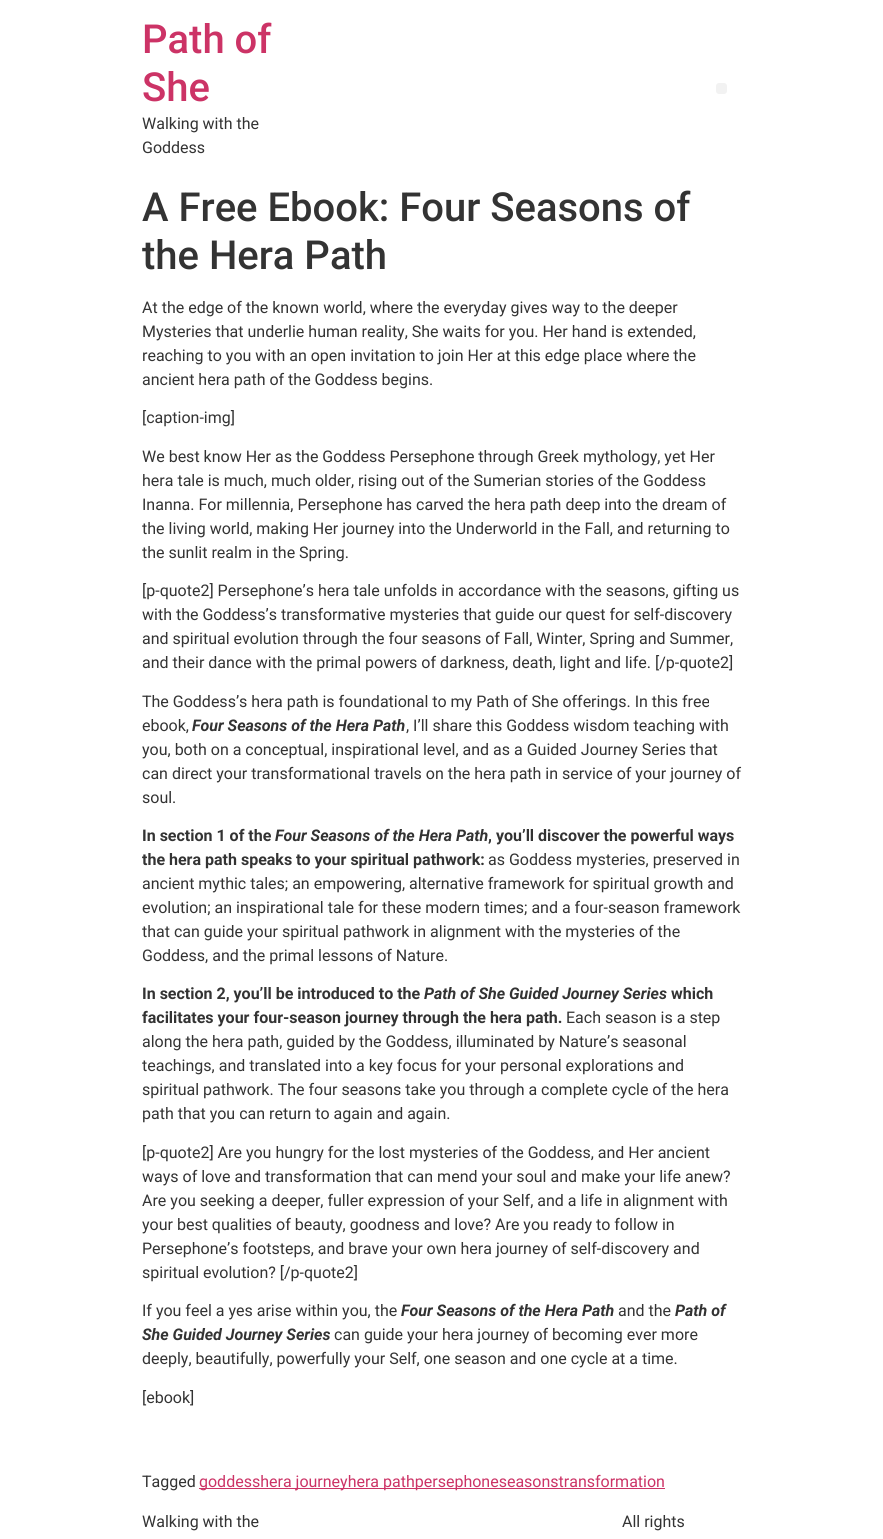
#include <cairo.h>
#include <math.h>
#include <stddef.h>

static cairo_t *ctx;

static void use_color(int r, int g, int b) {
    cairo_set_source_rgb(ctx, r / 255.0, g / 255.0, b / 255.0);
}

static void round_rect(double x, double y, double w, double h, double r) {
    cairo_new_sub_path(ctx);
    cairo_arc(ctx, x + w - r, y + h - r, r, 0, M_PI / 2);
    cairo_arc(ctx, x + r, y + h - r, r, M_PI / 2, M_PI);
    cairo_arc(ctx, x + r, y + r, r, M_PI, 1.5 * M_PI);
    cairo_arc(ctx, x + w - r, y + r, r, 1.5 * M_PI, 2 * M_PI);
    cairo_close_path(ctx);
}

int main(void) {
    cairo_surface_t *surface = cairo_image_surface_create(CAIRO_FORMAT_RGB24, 883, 1539);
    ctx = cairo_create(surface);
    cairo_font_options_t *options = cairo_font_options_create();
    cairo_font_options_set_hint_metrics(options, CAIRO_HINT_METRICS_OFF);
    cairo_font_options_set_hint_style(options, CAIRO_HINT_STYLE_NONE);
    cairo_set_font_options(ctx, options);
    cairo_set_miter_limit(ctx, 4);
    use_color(255, 255, 255);
    cairo_paint(ctx);
    cairo_select_font_face(ctx, "Roboto Medium", CAIRO_FONT_SLANT_NORMAL, CAIRO_FONT_WEIGHT_NORMAL);
    cairo_set_font_size(ctx, 40);
    use_color(204, 51, 102);
    cairo_move_to(ctx, 142, 53);
    cairo_show_text(ctx, "Path of");
    cairo_move_to(ctx, 142, 101);
    cairo_show_text(ctx, "She");
    cairo_select_font_face(ctx, "Roboto", CAIRO_FONT_SLANT_NORMAL, CAIRO_FONT_WEIGHT_NORMAL);
    cairo_set_font_size(ctx, 16);
    use_color(51, 51, 51);
    cairo_move_to(ctx, 142, 129);
    cairo_show_text(ctx, "Walking with the");
    cairo_move_to(ctx, 142, 153);
    cairo_show_text(ctx, "Goddess");
    use_color(242, 242, 242);
    round_rect(716, 83, 11, 11, 3);
    cairo_fill(ctx);
    cairo_select_font_face(ctx, "Roboto Medium", CAIRO_FONT_SLANT_NORMAL, CAIRO_FONT_WEIGHT_NORMAL);
    cairo_set_font_size(ctx, 40);
    use_color(51, 51, 51);
    cairo_move_to(ctx, 142, 221);
    cairo_show_text(ctx, "A Free Ebook: Four Seasons of");
    cairo_move_to(ctx, 142, 269);
    cairo_show_text(ctx, "the Hera Path");
    cairo_select_font_face(ctx, "Roboto", CAIRO_FONT_SLANT_NORMAL, CAIRO_FONT_WEIGHT_NORMAL);
    cairo_set_font_size(ctx, 16);
    cairo_move_to(ctx, 142, 313);
    cairo_show_text(ctx, "At the edge of the known world, where the everyday gives way to the deeper");
    cairo_move_to(ctx, 142, 337);
    cairo_show_text(ctx, "Mysteries that underlie human reality, She waits for you. Her hand is extended,");
    cairo_move_to(ctx, 142, 361);
    cairo_show_text(ctx, "reaching to you with an open invitation to join Her at this edge place where the");
    cairo_move_to(ctx, 142, 385);
    cairo_show_text(ctx, "ancient hera path of the Goddess begins.");
    cairo_move_to(ctx, 142, 423);
    cairo_show_text(ctx, "[caption-img]");
    cairo_move_to(ctx, 142, 462);
    cairo_show_text(ctx, "We best know Her as the Goddess Persephone through Greek mythology, yet Her");
    cairo_move_to(ctx, 142, 486);
    cairo_show_text(ctx, "hera tale is much, much older, rising out of the Sumerian stories of the Goddess");
    cairo_move_to(ctx, 142, 510);
    cairo_show_text(ctx, "Inanna. For millennia, Persephone has carved the hera path deep into the dream of");
    cairo_move_to(ctx, 142, 534);
    cairo_show_text(ctx, "the living world, making Her journey into the Underworld in the Fall, and returning to");
    cairo_move_to(ctx, 142, 558);
    cairo_show_text(ctx, "the sunlit realm in the Spring.");
    cairo_move_to(ctx, 142, 596);
    cairo_show_text(ctx, "[p-quote2] Persephone’s hera tale unfolds in accordance with the seasons, gifting us");
    cairo_move_to(ctx, 142, 620);
    cairo_show_text(ctx, "with the Goddess’s transformative mysteries that guide our quest for self-discovery");
    cairo_move_to(ctx, 142, 644);
    cairo_show_text(ctx, "and spiritual evolution through the four seasons of Fall, Winter, Spring and Summer,");
    cairo_move_to(ctx, 142, 668);
    cairo_show_text(ctx, "and their dance with the primal powers of darkness, death, light and life. [/p-quote2]");
    cairo_move_to(ctx, 142, 707);
    cairo_show_text(ctx, "The Goddess’s hera path is foundational to my Path of She offerings. In this free");
    cairo_move_to(ctx, 142, 731);
    cairo_show_text(ctx, "ebook,");
    cairo_select_font_face(ctx, "Roboto", CAIRO_FONT_SLANT_ITALIC, CAIRO_FONT_WEIGHT_BOLD);
    cairo_move_to(ctx, 192, 731);
    cairo_show_text(ctx, "Four Seasons of the Hera Path");
    cairo_select_font_face(ctx, "Roboto", CAIRO_FONT_SLANT_NORMAL, CAIRO_FONT_WEIGHT_NORMAL);
    cairo_move_to(ctx, 406, 731);
    cairo_show_text(ctx, ", I’ll share this Goddess wisdom teaching with");
    cairo_move_to(ctx, 142, 755);
    cairo_show_text(ctx, "you, both on a conceptual, inspirational level, and as a Guided Journey Series that");
    cairo_move_to(ctx, 142, 779);
    cairo_show_text(ctx, "can direct your transformational travels on the hera path in service of your journey of");
    cairo_move_to(ctx, 142, 803);
    cairo_show_text(ctx, "soul.");
    cairo_select_font_face(ctx, "Roboto", CAIRO_FONT_SLANT_NORMAL, CAIRO_FONT_WEIGHT_BOLD);
    cairo_move_to(ctx, 142, 841);
    cairo_show_text(ctx, "In section 1 of the");
    cairo_select_font_face(ctx, "Roboto", CAIRO_FONT_SLANT_ITALIC, CAIRO_FONT_WEIGHT_BOLD);
    cairo_move_to(ctx, 275, 841);
    cairo_show_text(ctx, "Four Seasons of the Hera Path");
    cairo_select_font_face(ctx, "Roboto", CAIRO_FONT_SLANT_NORMAL, CAIRO_FONT_WEIGHT_BOLD);
    cairo_move_to(ctx, 488, 841);
    cairo_show_text(ctx, ", you’ll discover the powerful ways");
    cairo_move_to(ctx, 142, 865);
    cairo_show_text(ctx, "the hera path speaks to your spiritual pathwork:");
    cairo_select_font_face(ctx, "Roboto", CAIRO_FONT_SLANT_NORMAL, CAIRO_FONT_WEIGHT_NORMAL);
    cairo_move_to(ctx, 488, 865);
    cairo_show_text(ctx, "as Goddess mysteries, preserved in");
    cairo_move_to(ctx, 142, 889);
    cairo_show_text(ctx, "ancient mythic tales; an empowering, alternative framework for spiritual growth and");
    cairo_move_to(ctx, 142, 913);
    cairo_show_text(ctx, "evolution; an inspirational tale for these modern times; and a four-season framework");
    cairo_move_to(ctx, 142, 937);
    cairo_show_text(ctx, "that can guide your spiritual pathwork in alignment with the mysteries of the");
    cairo_move_to(ctx, 142, 961);
    cairo_show_text(ctx, "Goddess, and the primal lessons of Nature.");
    cairo_select_font_face(ctx, "Roboto", CAIRO_FONT_SLANT_NORMAL, CAIRO_FONT_WEIGHT_BOLD);
    cairo_move_to(ctx, 142, 999);
    cairo_show_text(ctx, "In section 2, you’ll be introduced to the");
    cairo_select_font_face(ctx, "Roboto", CAIRO_FONT_SLANT_ITALIC, CAIRO_FONT_WEIGHT_BOLD);
    cairo_move_to(ctx, 424, 999);
    cairo_show_text(ctx, "Path of She Guided Journey Series");
    cairo_select_font_face(ctx, "Roboto", CAIRO_FONT_SLANT_NORMAL, CAIRO_FONT_WEIGHT_BOLD);
    cairo_move_to(ctx, 671, 999);
    cairo_show_text(ctx, "which");
    cairo_move_to(ctx, 142, 1023);
    cairo_show_text(ctx, "facilitates your four-season journey through the hera path.");
    cairo_select_font_face(ctx, "Roboto", CAIRO_FONT_SLANT_NORMAL, CAIRO_FONT_WEIGHT_NORMAL);
    cairo_move_to(ctx, 566, 1023);
    cairo_show_text(ctx, "Each season is a step");
    cairo_move_to(ctx, 142, 1047);
    cairo_show_text(ctx, "along the hera path, guided by the Goddess, illuminated by Nature’s seasonal");
    cairo_move_to(ctx, 142, 1071);
    cairo_show_text(ctx, "teachings, and translated into a key focus for your personal explorations and");
    cairo_move_to(ctx, 142, 1095);
    cairo_show_text(ctx, "spiritual pathwork. The four seasons take you through a complete cycle of the hera");
    cairo_move_to(ctx, 142, 1119);
    cairo_show_text(ctx, "path that you can return to again and again.");
    cairo_move_to(ctx, 142, 1158);
    cairo_show_text(ctx, "[p-quote2] Are you hungry for the lost mysteries of the Goddess, and Her ancient");
    cairo_move_to(ctx, 142, 1182);
    cairo_show_text(ctx, "ways of love and transformation that can mend your soul and make your life anew?");
    cairo_move_to(ctx, 142, 1206);
    cairo_show_text(ctx, "Are you seeking a deeper, fuller expression of your Self, and a life in alignment with");
    cairo_move_to(ctx, 142, 1230);
    cairo_show_text(ctx, "your best qualities of beauty, goodness and love? Are you ready to follow in");
    cairo_move_to(ctx, 142, 1254);
    cairo_show_text(ctx, "Persephone’s footsteps, and brave your own hera journey of self-discovery and");
    cairo_move_to(ctx, 142, 1278);
    cairo_show_text(ctx, "spiritual evolution? [/p-quote2]");
    cairo_move_to(ctx, 142, 1316);
    cairo_show_text(ctx, "If you feel a yes arise within you, the");
    cairo_select_font_face(ctx, "Roboto", CAIRO_FONT_SLANT_ITALIC, CAIRO_FONT_WEIGHT_BOLD);
    cairo_move_to(ctx, 401, 1316);
    cairo_show_text(ctx, "Four Seasons of the Hera Path");
    cairo_select_font_face(ctx, "Roboto", CAIRO_FONT_SLANT_NORMAL, CAIRO_FONT_WEIGHT_NORMAL);
    cairo_move_to(ctx, 618, 1316);
    cairo_show_text(ctx, "and the");
    cairo_select_font_face(ctx, "Roboto", CAIRO_FONT_SLANT_ITALIC, CAIRO_FONT_WEIGHT_BOLD);
    cairo_move_to(ctx, 675, 1316);
    cairo_show_text(ctx, "Path of");
    cairo_move_to(ctx, 142, 1340);
    cairo_show_text(ctx, "She Guided Journey Series");
    cairo_select_font_face(ctx, "Roboto", CAIRO_FONT_SLANT_NORMAL, CAIRO_FONT_WEIGHT_NORMAL);
    cairo_move_to(ctx, 334, 1340);
    cairo_show_text(ctx, "can guide your hera journey of becoming ever more");
    cairo_move_to(ctx, 142, 1364);
    cairo_show_text(ctx, "deeply, beautifully, powerfully your Self, one season and one cycle at a time.");
    cairo_move_to(ctx, 142, 1403);
    cairo_show_text(ctx, "[ebook]");
    cairo_move_to(ctx, 142, 1487);
    cairo_show_text(ctx, "Tagged");
    use_color(204, 51, 102);
    cairo_rectangle(ctx, 199, 1488, 466, 1);
    cairo_fill(ctx);
    cairo_move_to(ctx, 199, 1487);
    cairo_show_text(ctx, "goddesshera journeyhera pathpersephoneseasonstransformation");
    use_color(51, 51, 51);
    cairo_move_to(ctx, 142, 1527);
    cairo_show_text(ctx, "Walking with the");
    cairo_move_to(ctx, 622, 1527);
    cairo_show_text(ctx, "All rights");
    cairo_surface_write_to_png(surface, "result.png");
    cairo_font_options_destroy(options);
    cairo_destroy(ctx);
    cairo_surface_destroy(surface);
    return 0;
}
